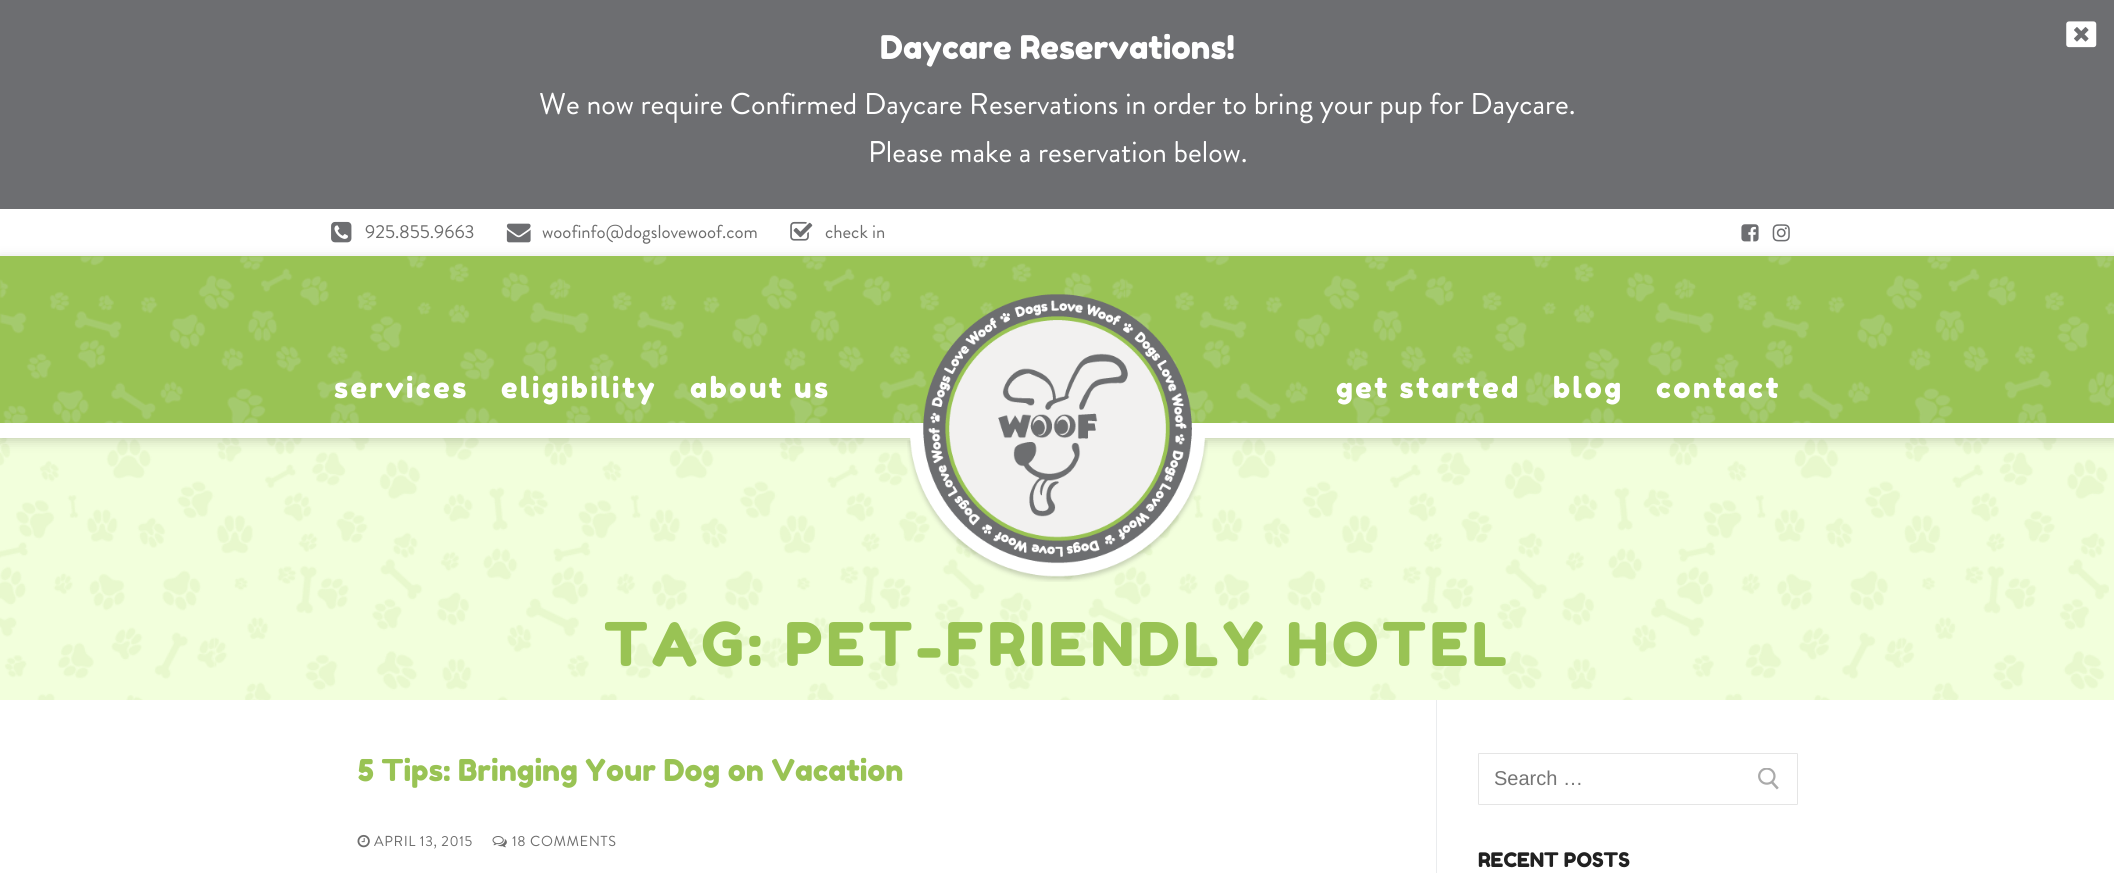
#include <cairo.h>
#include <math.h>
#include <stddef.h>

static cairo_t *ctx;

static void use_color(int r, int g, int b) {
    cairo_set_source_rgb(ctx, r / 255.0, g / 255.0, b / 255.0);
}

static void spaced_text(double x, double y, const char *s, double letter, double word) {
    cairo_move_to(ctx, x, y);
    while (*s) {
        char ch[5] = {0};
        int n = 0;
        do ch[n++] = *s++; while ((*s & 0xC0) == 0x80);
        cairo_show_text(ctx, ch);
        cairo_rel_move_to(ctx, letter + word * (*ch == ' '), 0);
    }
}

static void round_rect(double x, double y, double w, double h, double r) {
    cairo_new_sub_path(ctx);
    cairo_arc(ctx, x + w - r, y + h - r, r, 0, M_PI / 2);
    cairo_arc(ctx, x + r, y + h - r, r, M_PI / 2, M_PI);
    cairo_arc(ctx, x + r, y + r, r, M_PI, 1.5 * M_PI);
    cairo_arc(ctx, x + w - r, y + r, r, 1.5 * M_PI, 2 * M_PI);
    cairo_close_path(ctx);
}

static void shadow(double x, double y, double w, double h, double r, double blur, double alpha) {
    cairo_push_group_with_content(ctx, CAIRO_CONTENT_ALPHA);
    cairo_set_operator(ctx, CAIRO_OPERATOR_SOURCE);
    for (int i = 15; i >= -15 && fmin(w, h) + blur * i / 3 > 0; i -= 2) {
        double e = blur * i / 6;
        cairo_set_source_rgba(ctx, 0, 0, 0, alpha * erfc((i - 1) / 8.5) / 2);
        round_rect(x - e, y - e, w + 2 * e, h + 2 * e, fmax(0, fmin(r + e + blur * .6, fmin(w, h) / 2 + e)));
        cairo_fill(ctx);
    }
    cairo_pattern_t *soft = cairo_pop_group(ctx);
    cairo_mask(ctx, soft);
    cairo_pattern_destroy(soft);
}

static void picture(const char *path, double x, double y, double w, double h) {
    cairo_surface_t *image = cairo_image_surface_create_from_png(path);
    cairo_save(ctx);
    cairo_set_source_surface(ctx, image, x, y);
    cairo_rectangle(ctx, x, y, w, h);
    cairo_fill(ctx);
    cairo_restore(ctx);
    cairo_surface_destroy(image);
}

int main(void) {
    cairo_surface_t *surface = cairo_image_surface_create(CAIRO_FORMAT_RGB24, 2114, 873);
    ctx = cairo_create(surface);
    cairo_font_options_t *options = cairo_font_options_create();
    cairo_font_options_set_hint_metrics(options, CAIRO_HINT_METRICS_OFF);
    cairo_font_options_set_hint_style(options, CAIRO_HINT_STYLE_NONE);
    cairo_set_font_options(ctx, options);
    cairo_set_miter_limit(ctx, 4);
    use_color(255, 255, 255);
    cairo_paint(ctx);
    use_color(109, 110, 113);
    cairo_rectangle(ctx, 0, 0, 2114, 209);
    cairo_fill(ctx);
    cairo_select_font_face(ctx, "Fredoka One", CAIRO_FONT_SLANT_NORMAL, CAIRO_FONT_WEIGHT_NORMAL);
    cairo_set_font_size(ctx, 32.5);
    use_color(255, 255, 255);
    cairo_move_to(ctx, 880, 59);
    cairo_show_text(ctx, "Daycare Reservations!");
    cairo_select_font_face(ctx, "Brandon Grotesque", CAIRO_FONT_SLANT_NORMAL, CAIRO_FONT_WEIGHT_NORMAL);
    cairo_set_font_size(ctx, 30);
    cairo_move_to(ctx, 539, 114);
    cairo_show_text(ctx, "We now require Confirmed Daycare Reservations in order to bring your pup for Daycare.");
    cairo_move_to(ctx, 868, 162);
    cairo_show_text(ctx, "Please make a reservation below.");
    picture("img1.png", 2066, 21, 31, 27);
    use_color(242, 255, 220);
    cairo_rectangle(ctx, 0, 438, 2114, 262);
    cairo_fill(ctx);
    picture("img9.png", 0, 438, 2109, 262);
    use_color(0, 0, 0);
    shadow(0, 259, 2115, 181, 0, 6, 0.2);
    picture("img2.png", 331, 221, 21, 22);
    cairo_set_font_size(ctx, 18.75);
    use_color(109, 109, 109);
    cairo_move_to(ctx, 365, 238);
    cairo_show_text(ctx, "925.855.9663");
    picture("img3.png", 506, 223, 25, 20);
    cairo_move_to(ctx, 542, 238);
    cairo_show_text(ctx, "woofinfo@dogslovewoof.com");
    picture("img4.png", 790, 221, 23, 20);
    cairo_move_to(ctx, 825, 238);
    cairo_show_text(ctx, "check in");
    picture("img5.png", 1741, 224, 18, 18);
    picture("img6.png", 1772, 224, 18, 18);
    use_color(153, 195, 84);
    cairo_rectangle(ctx, 0, 256, 2114, 167);
    cairo_fill(ctx);
    picture("img7.png", 0, 256, 2114, 167);
    use_color(255, 255, 255);
    cairo_rectangle(ctx, 0, 423, 2114, 15);
    cairo_fill(ctx);
    cairo_select_font_face(ctx, "Fredoka One", CAIRO_FONT_SLANT_NORMAL, CAIRO_FONT_WEIGHT_NORMAL);
    cairo_set_font_size(ctx, 28.75);
    spaced_text(334, 398, "services", 2.5, 0);
    spaced_text(501, 398, "eligibility", 2.5, 0);
    spaced_text(690, 398, "about us", 2.5, 0);
    picture("img8.png", 907, 294, 301, 288);
    spaced_text(1336, 398, "get started", 2.5, 0);
    spaced_text(1553, 398, "blog", 2.5, 0);
    spaced_text(1656, 398, "contact", 2.5, 0);
    cairo_set_font_size(ctx, 60);
    use_color(153, 195, 84);
    spaced_text(604, 666, "TAG: PET-FRIENDLY HOTEL", 3.75, 0);
    use_color(234, 236, 238);
    cairo_rectangle(ctx, 1436, 700, 1, 173);
    cairo_fill(ctx);
    cairo_set_font_size(ctx, 30);
    use_color(153, 195, 84);
    cairo_move_to(ctx, 358, 781);
    cairo_show_text(ctx, "5 Tips: Bringing Your Dog on Vacation");
    picture("img10.png", 357, 834, 13, 14);
    cairo_select_font_face(ctx, "Brandon Grotesque", CAIRO_FONT_SLANT_NORMAL, CAIRO_FONT_WEIGHT_NORMAL);
    cairo_set_font_size(ctx, 14.5);
    use_color(109, 109, 109);
    spaced_text(374, 846, "APRIL 13, 2015", 0.6, 0);
    picture("img11.png", 492, 836, 15, 12);
    spaced_text(512, 846, "18 COMMENTS", 0.6, 0);
    round_rect(1478.5, 753.5, 319, 51, 0.5);
    use_color(229, 229, 229);
    cairo_set_line_width(ctx, 1);
    cairo_stroke(ctx);
    cairo_select_font_face(ctx, "Liberation Sans", CAIRO_FONT_SLANT_NORMAL, CAIRO_FONT_WEIGHT_NORMAL);
    cairo_set_font_size(ctx, 20);
    use_color(117, 117, 117);
    cairo_move_to(ctx, 1494, 785);
    cairo_show_text(ctx, "Search …");
    picture("img12.png", 1758, 768, 21, 22);
    cairo_select_font_face(ctx, "Fredoka One", CAIRO_FONT_SLANT_NORMAL, CAIRO_FONT_WEIGHT_NORMAL);
    use_color(33, 33, 33);
    cairo_move_to(ctx, 1478, 867);
    cairo_show_text(ctx, "RECENT POSTS");
    cairo_surface_write_to_png(surface, "result.png");
    cairo_font_options_destroy(options);
    cairo_destroy(ctx);
    cairo_surface_destroy(surface);
    return 0;
}
